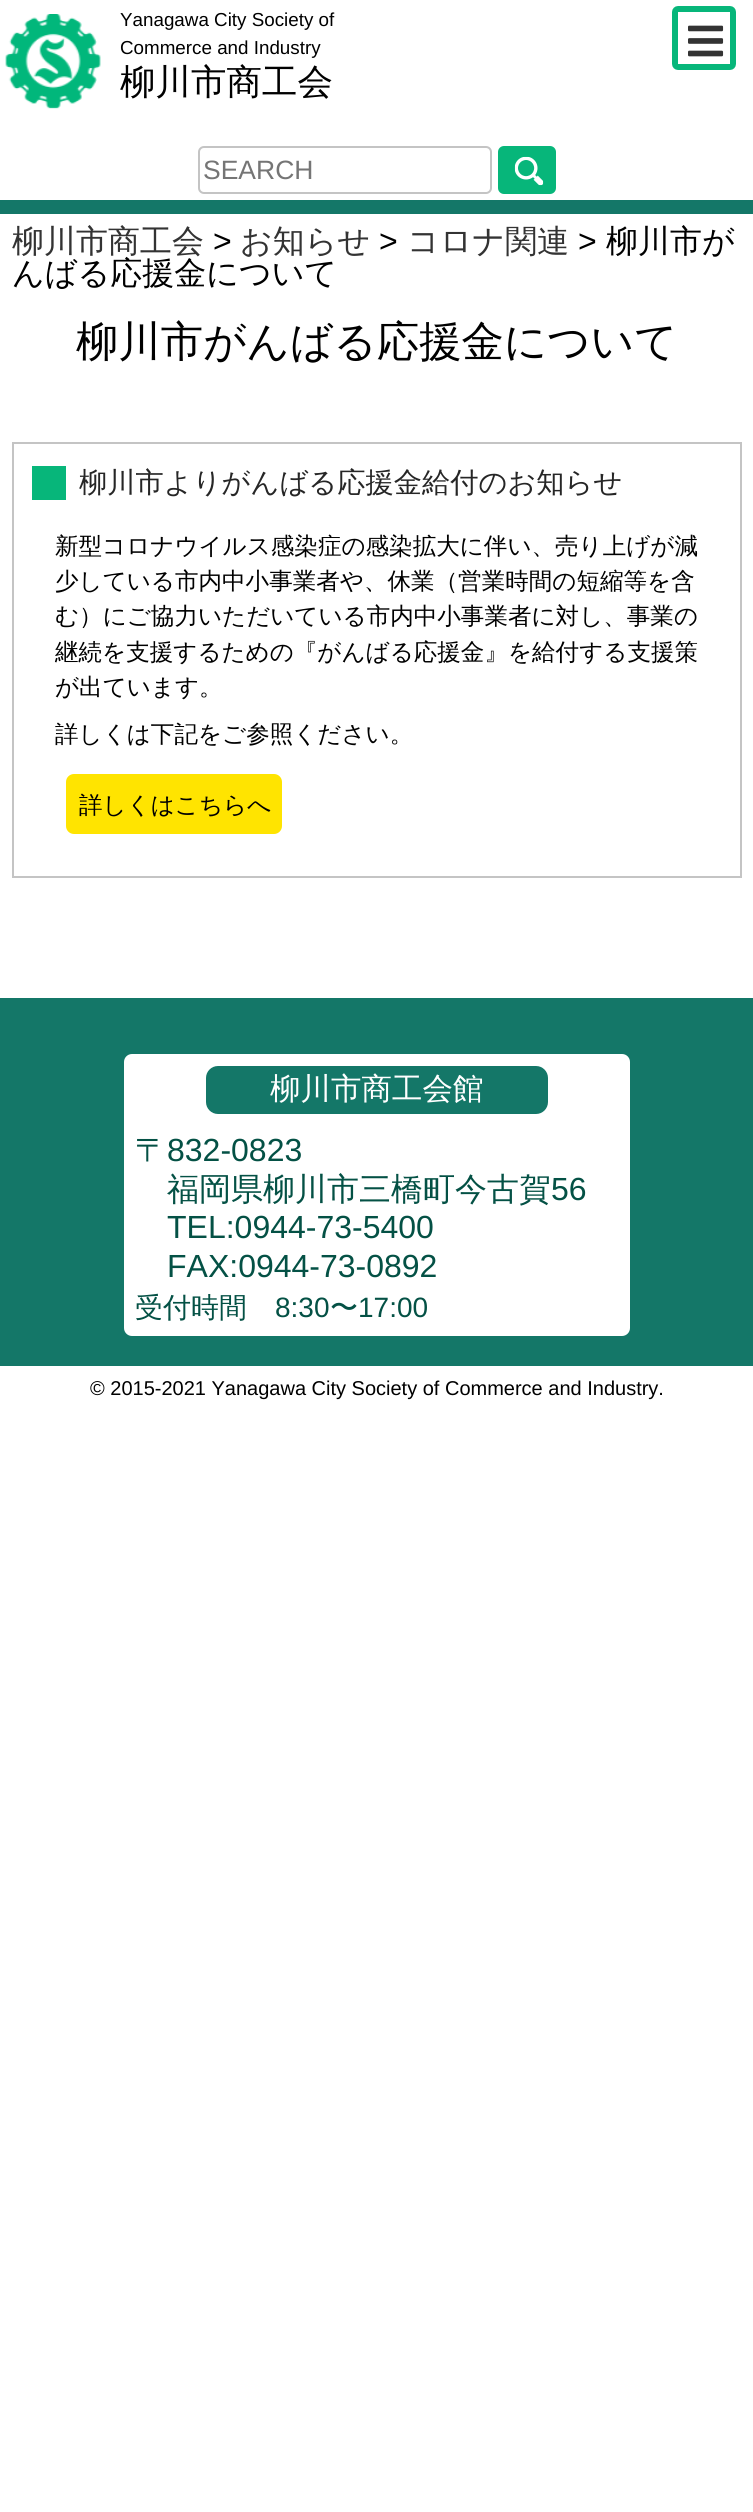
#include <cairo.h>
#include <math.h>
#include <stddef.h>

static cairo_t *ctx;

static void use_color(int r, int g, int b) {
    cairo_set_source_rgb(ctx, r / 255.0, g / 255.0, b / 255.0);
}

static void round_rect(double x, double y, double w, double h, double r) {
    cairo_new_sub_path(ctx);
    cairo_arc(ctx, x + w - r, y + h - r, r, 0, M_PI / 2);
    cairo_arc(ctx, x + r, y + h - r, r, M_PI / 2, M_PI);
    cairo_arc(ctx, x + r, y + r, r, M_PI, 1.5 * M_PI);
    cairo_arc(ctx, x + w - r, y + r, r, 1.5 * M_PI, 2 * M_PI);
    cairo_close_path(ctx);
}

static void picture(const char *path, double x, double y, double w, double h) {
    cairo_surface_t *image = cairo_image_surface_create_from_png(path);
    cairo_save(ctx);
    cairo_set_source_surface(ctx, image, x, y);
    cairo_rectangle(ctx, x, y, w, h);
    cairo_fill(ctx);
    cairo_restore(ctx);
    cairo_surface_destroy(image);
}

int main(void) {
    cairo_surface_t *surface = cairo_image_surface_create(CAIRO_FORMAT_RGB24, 753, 2512);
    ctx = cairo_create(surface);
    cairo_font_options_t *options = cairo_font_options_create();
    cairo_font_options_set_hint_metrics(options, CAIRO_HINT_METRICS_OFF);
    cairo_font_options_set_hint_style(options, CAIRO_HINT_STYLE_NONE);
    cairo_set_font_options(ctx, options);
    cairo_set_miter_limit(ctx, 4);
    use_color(255, 255, 255);
    cairo_paint(ctx);
    picture("img1.png", 5, 14, 96, 95);
    cairo_select_font_face(ctx, "Liberation Sans", CAIRO_FONT_SLANT_NORMAL, CAIRO_FONT_WEIGHT_NORMAL);
    cairo_set_font_size(ctx, 18.8);
    use_color(0, 0, 0);
    cairo_move_to(ctx, 120, 26);
    cairo_show_text(ctx, "Yanagawa City Society of");
    cairo_move_to(ctx, 120, 54);
    cairo_show_text(ctx, "Commerce and Industry");
    cairo_select_font_face(ctx, "WenQuanYi Zen Hei Medium", CAIRO_FONT_SLANT_NORMAL, CAIRO_FONT_WEIGHT_NORMAL);
    cairo_set_font_size(ctx, 35.5);
    cairo_move_to(ctx, 120, 94);
    cairo_show_text(ctx, "柳川市商工会");
    round_rect(199, 147, 292, 46, 5);
    use_color(196, 196, 196);
    cairo_stroke(ctx);
    cairo_select_font_face(ctx, "Liberation Sans", CAIRO_FONT_SLANT_NORMAL, CAIRO_FONT_WEIGHT_NORMAL);
    cairo_set_font_size(ctx, 26.5);
    use_color(117, 117, 117);
    cairo_move_to(ctx, 203, 179);
    cairo_show_text(ctx, "SEARCH");
    use_color(7, 182, 122);
    round_rect(498, 146, 58, 48, 6);
    cairo_fill(ctx);
    picture("img2.png", 514, 156, 30, 30);
    round_rect(675, 9, 58, 58, 3);
    cairo_set_line_width(ctx, 6);
    cairo_stroke(ctx);
    picture("img3.png", 688, 25, 36, 32);
    use_color(20, 119, 104);
    cairo_rectangle(ctx, 0, 200, 753, 14);
    cairo_fill(ctx);
    cairo_select_font_face(ctx, "WenQuanYi Zen Hei Medium", CAIRO_FONT_SLANT_NORMAL, CAIRO_FONT_WEIGHT_NORMAL);
    cairo_set_font_size(ctx, 32);
    use_color(51, 51, 51);
    cairo_move_to(ctx, 12, 252);
    cairo_show_text(ctx, "柳川市商工会");
    cairo_select_font_face(ctx, "Liberation Sans", CAIRO_FONT_SLANT_NORMAL, CAIRO_FONT_WEIGHT_NORMAL);
    use_color(0, 0, 0);
    cairo_move_to(ctx, 213, 252);
    cairo_show_text(ctx, ">");
    cairo_select_font_face(ctx, "WenQuanYi Zen Hei Medium", CAIRO_FONT_SLANT_NORMAL, CAIRO_FONT_WEIGHT_NORMAL);
    use_color(51, 51, 51);
    cairo_move_to(ctx, 240, 252);
    cairo_show_text(ctx, "お知らせ");
    cairo_select_font_face(ctx, "Liberation Sans", CAIRO_FONT_SLANT_NORMAL, CAIRO_FONT_WEIGHT_NORMAL);
    use_color(0, 0, 0);
    cairo_move_to(ctx, 379, 252);
    cairo_show_text(ctx, ">");
    cairo_select_font_face(ctx, "WenQuanYi Zen Hei Medium", CAIRO_FONT_SLANT_NORMAL, CAIRO_FONT_WEIGHT_NORMAL);
    use_color(51, 51, 51);
    cairo_move_to(ctx, 407, 252);
    cairo_show_text(ctx, "コロナ関連");
    cairo_select_font_face(ctx, "Liberation Sans", CAIRO_FONT_SLANT_NORMAL, CAIRO_FONT_WEIGHT_NORMAL);
    use_color(0, 0, 0);
    cairo_move_to(ctx, 578, 252);
    cairo_show_text(ctx, ">");
    cairo_select_font_face(ctx, "WenQuanYi Zen Hei Medium", CAIRO_FONT_SLANT_NORMAL, CAIRO_FONT_WEIGHT_NORMAL);
    cairo_move_to(ctx, 606, 252);
    cairo_show_text(ctx, "柳川市が");
    cairo_move_to(ctx, 12, 284);
    cairo_show_text(ctx, "んばる応援金について");
    cairo_set_font_size(ctx, 42.4);
    cairo_move_to(ctx, 76, 356);
    cairo_show_text(ctx, "柳川市がんばる応援金について");
    cairo_rectangle(ctx, 13, 443, 728, 434);
    use_color(196, 196, 196);
    cairo_set_line_width(ctx, 2);
    cairo_stroke(ctx);
    use_color(7, 182, 122);
    cairo_rectangle(ctx, 32, 466, 34, 34);
    cairo_fill(ctx);
    cairo_set_font_size(ctx, 28.25);
    use_color(38, 38, 38);
    cairo_move_to(ctx, 79, 492);
    cairo_show_text(ctx, "柳川市よりがんばる応援金給付のお知らせ");
    cairo_set_font_size(ctx, 23.55);
    use_color(0, 0, 0);
    cairo_move_to(ctx, 55, 554);
    cairo_show_text(ctx, "新型コロナウイルス感染症の感染拡大に伴い、売り上げが減");
    cairo_move_to(ctx, 55, 589);
    cairo_show_text(ctx, "少している市内中小事業者や、休業（営業時間の短縮等を含");
    cairo_move_to(ctx, 55, 624);
    cairo_show_text(ctx, "む）にご協力いただいている市内中小事業者に対し、事業の");
    cairo_move_to(ctx, 55, 660);
    cairo_show_text(ctx, "継続を支援するための『がんばる応援金』を給付する支援策");
    cairo_move_to(ctx, 55, 695);
    cairo_show_text(ctx, "が出ています。");
    cairo_move_to(ctx, 55, 742);
    cairo_show_text(ctx, "詳しくは下記をご参照ください。");
    use_color(255, 228, 0);
    round_rect(66, 774, 216, 60, 8);
    cairo_fill(ctx);
    use_color(0, 0, 0);
    cairo_move_to(ctx, 79, 813);
    cairo_show_text(ctx, "詳しくはこちらへ");
    use_color(20, 119, 104);
    cairo_rectangle(ctx, 0, 998, 753, 368);
    cairo_fill(ctx);
    use_color(255, 255, 255);
    round_rect(124, 1054, 506, 282, 8);
    cairo_fill(ctx);
    use_color(20, 119, 104);
    round_rect(206, 1066, 342, 48, 12);
    cairo_fill(ctx);
    cairo_set_font_size(ctx, 30.5);
    use_color(255, 255, 255);
    cairo_move_to(ctx, 270, 1099);
    cairo_show_text(ctx, "柳川市商工会館");
    cairo_set_font_size(ctx, 32);
    use_color(4, 81, 69);
    cairo_move_to(ctx, 135, 1161);
    cairo_show_text(ctx, "〒");
    cairo_select_font_face(ctx, "Liberation Sans", CAIRO_FONT_SLANT_NORMAL, CAIRO_FONT_WEIGHT_NORMAL);
    cairo_move_to(ctx, 167, 1161);
    cairo_show_text(ctx, "832-0823");
    cairo_select_font_face(ctx, "WenQuanYi Zen Hei Medium", CAIRO_FONT_SLANT_NORMAL, CAIRO_FONT_WEIGHT_NORMAL);
    cairo_move_to(ctx, 167, 1200);
    cairo_show_text(ctx, "福岡県柳川市三橋町今古賀");
    cairo_select_font_face(ctx, "Liberation Sans", CAIRO_FONT_SLANT_NORMAL, CAIRO_FONT_WEIGHT_NORMAL);
    cairo_move_to(ctx, 551, 1200);
    cairo_show_text(ctx, "56");
    cairo_move_to(ctx, 167, 1238);
    cairo_show_text(ctx, "TEL:0944-73-5400");
    cairo_move_to(ctx, 167, 1277);
    cairo_show_text(ctx, "FAX:0944-73-0892");
    cairo_select_font_face(ctx, "WenQuanYi Zen Hei Medium", CAIRO_FONT_SLANT_NORMAL, CAIRO_FONT_WEIGHT_NORMAL);
    cairo_set_font_size(ctx, 28);
    cairo_move_to(ctx, 135, 1317);
    cairo_show_text(ctx, "受付時間");
    cairo_select_font_face(ctx, "Liberation Sans", CAIRO_FONT_SLANT_NORMAL, CAIRO_FONT_WEIGHT_NORMAL);
    cairo_move_to(ctx, 275, 1317);
    cairo_show_text(ctx, "8:30");
    cairo_select_font_face(ctx, "WenQuanYi Zen Hei Medium", CAIRO_FONT_SLANT_NORMAL, CAIRO_FONT_WEIGHT_NORMAL);
    cairo_move_to(ctx, 330, 1317);
    cairo_show_text(ctx, "〜");
    cairo_select_font_face(ctx, "Liberation Sans", CAIRO_FONT_SLANT_NORMAL, CAIRO_FONT_WEIGHT_NORMAL);
    cairo_move_to(ctx, 358, 1317);
    cairo_show_text(ctx, "17:00");
    cairo_set_font_size(ctx, 20);
    use_color(0, 0, 0);
    cairo_move_to(ctx, 90, 1395);
    cairo_show_text(ctx, "© 2015-2021 Yanagawa City Society of Commerce and Industry.");
    cairo_surface_write_to_png(surface, "result.png");
    cairo_font_options_destroy(options);
    cairo_destroy(ctx);
    cairo_surface_destroy(surface);
    return 0;
}
